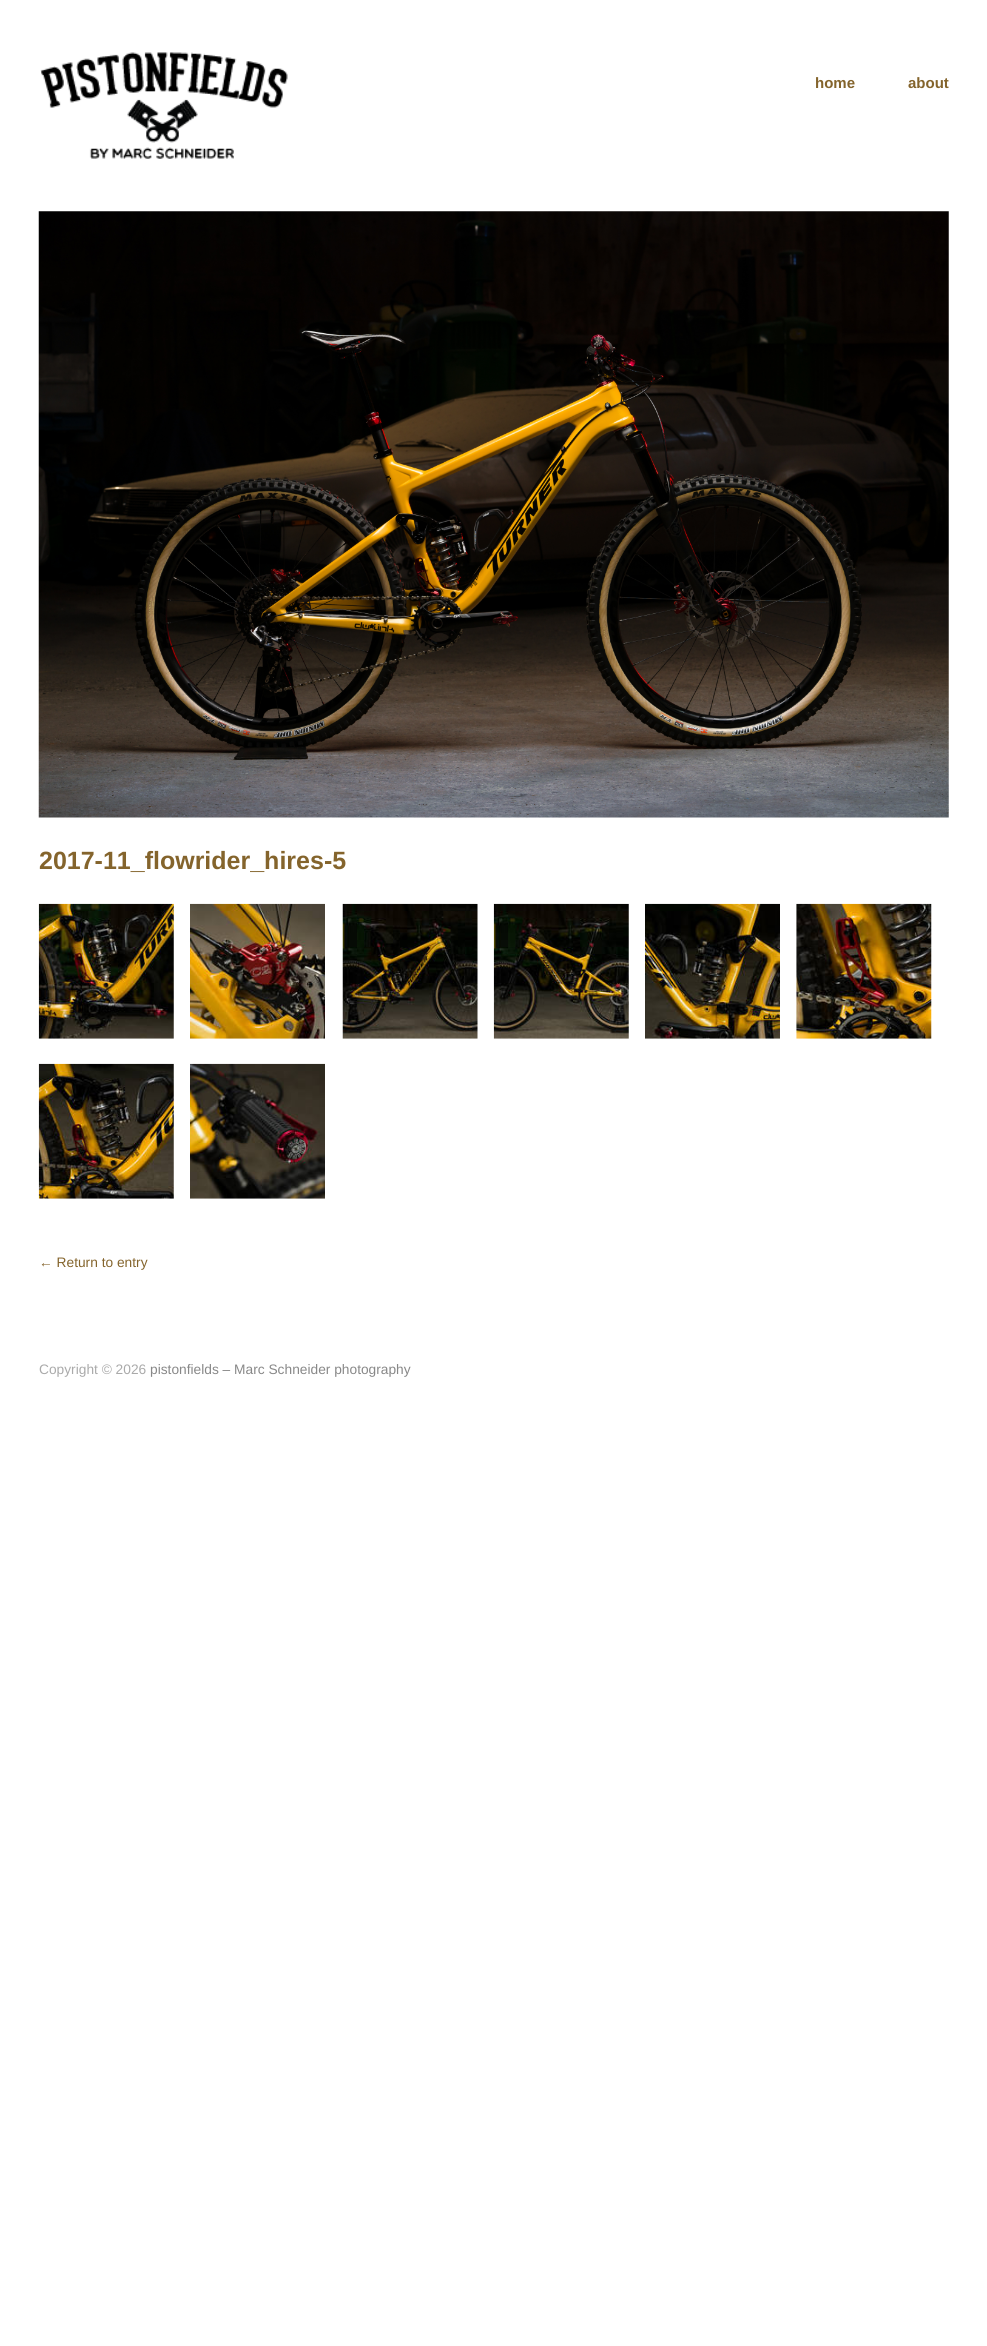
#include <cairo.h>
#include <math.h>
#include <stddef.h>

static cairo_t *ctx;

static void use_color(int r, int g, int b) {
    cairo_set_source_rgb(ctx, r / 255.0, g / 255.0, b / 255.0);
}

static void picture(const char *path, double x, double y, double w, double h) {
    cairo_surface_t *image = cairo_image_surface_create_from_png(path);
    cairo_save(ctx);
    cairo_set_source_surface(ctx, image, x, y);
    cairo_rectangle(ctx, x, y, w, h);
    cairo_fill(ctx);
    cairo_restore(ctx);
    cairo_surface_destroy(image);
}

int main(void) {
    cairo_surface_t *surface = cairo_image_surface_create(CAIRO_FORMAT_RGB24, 987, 2346);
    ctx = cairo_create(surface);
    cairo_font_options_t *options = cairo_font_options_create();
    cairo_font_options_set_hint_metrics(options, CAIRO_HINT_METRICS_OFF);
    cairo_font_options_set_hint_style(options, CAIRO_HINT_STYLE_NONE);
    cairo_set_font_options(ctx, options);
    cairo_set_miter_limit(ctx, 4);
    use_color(255, 255, 255);
    cairo_paint(ctx);
    picture("img1.png", 40, 52, 248, 107);
    cairo_select_font_face(ctx, "Liberation Sans", CAIRO_FONT_SLANT_NORMAL, CAIRO_FONT_WEIGHT_BOLD);
    cairo_set_font_size(ctx, 15);
    use_color(132, 100, 44);
    cairo_move_to(ctx, 815, 88);
    cairo_show_text(ctx, "home");
    cairo_move_to(ctx, 908, 88);
    cairo_show_text(ctx, "about");
    picture("img2.png", 38, 211, 911, 607);
    cairo_set_font_size(ctx, 25);
    cairo_move_to(ctx, 39, 869);
    cairo_show_text(ctx, "2017-11_flowrider_hires-5");
    picture("img3.png", 38, 903, 136, 136);
    picture("img4.png", 190, 903, 135, 136);
    picture("img5.png", 342, 903, 136, 136);
    picture("img6.png", 493, 903, 136, 136);
    picture("img7.png", 645, 903, 135, 136);
    picture("img8.png", 796, 903, 136, 136);
    picture("img9.png", 38, 1063, 136, 136);
    picture("img10.png", 190, 1063, 135, 136);
    cairo_select_font_face(ctx, "Liberation Sans", CAIRO_FONT_SLANT_NORMAL, CAIRO_FONT_WEIGHT_NORMAL);
    cairo_set_font_size(ctx, 13.75);
    cairo_move_to(ctx, 39, 1267);
    cairo_show_text(ctx, "← Return to entry");
    use_color(170, 170, 170);
    cairo_move_to(ctx, 39, 1374);
    cairo_show_text(ctx, "Copyright © 2026");
    use_color(136, 136, 136);
    cairo_move_to(ctx, 150, 1374);
    cairo_show_text(ctx, "pistonfields – Marc Schneider photography");
    cairo_surface_write_to_png(surface, "result.png");
    cairo_font_options_destroy(options);
    cairo_destroy(ctx);
    cairo_surface_destroy(surface);
    return 0;
}
